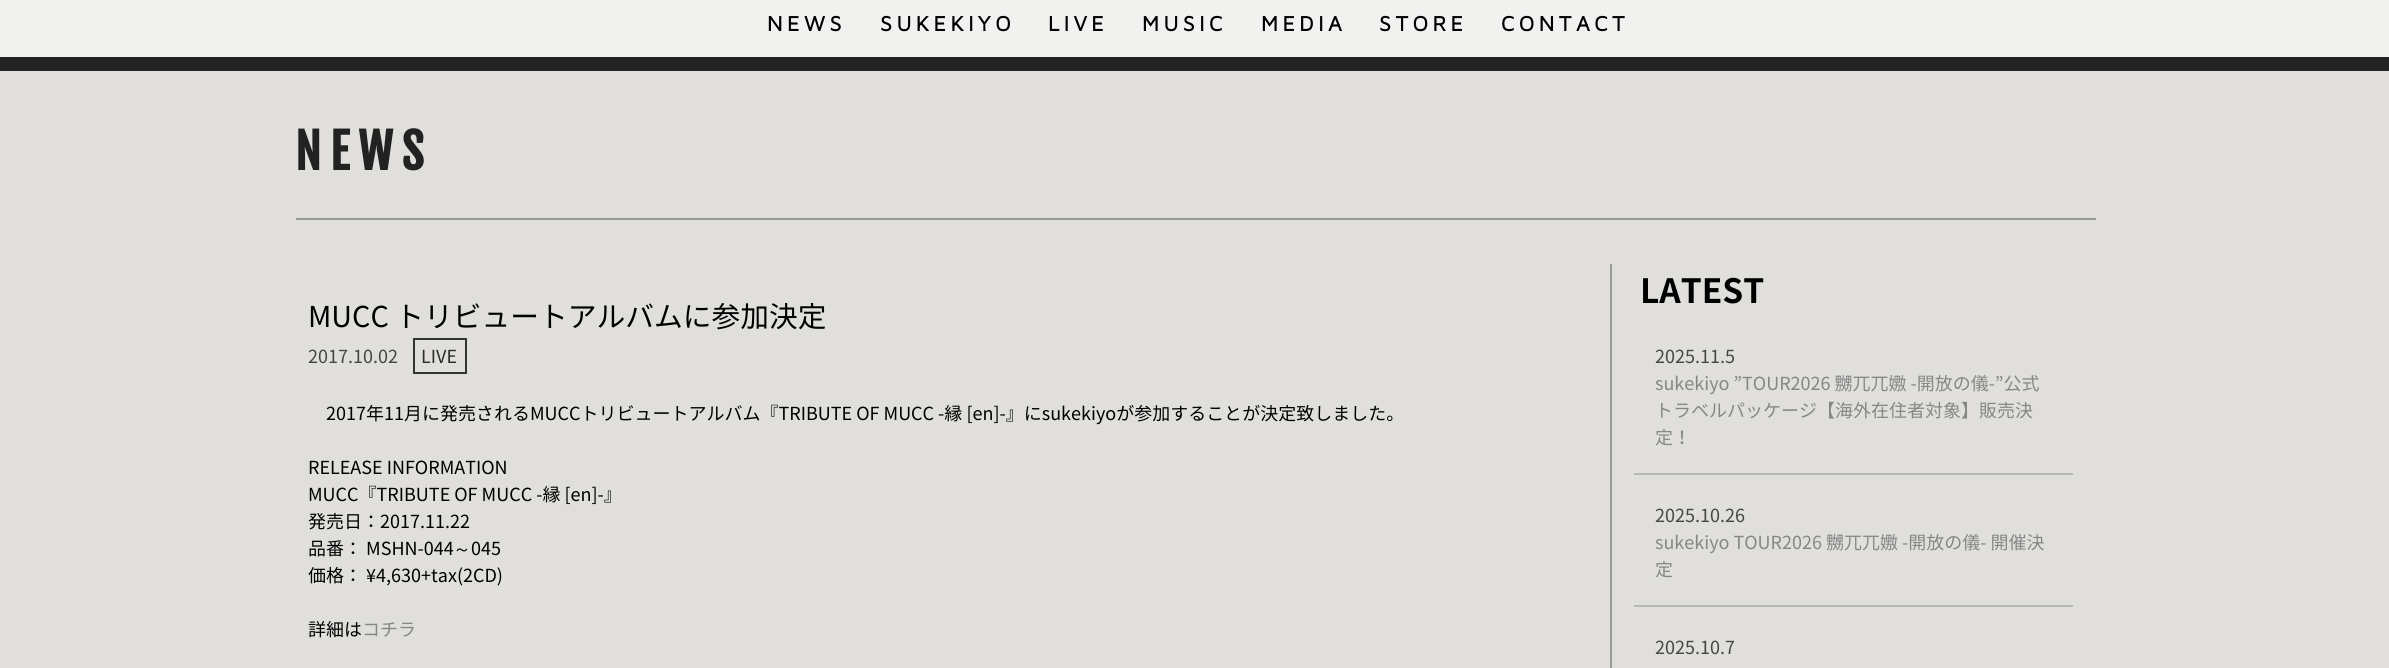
#include <cairo.h>
#include <math.h>
#include <stddef.h>

static cairo_t *ctx;

static void use_color(int r, int g, int b) {
    cairo_set_source_rgb(ctx, r / 255.0, g / 255.0, b / 255.0);
}

static void spaced_text(double x, double y, const char *s, double letter, double word) {
    cairo_move_to(ctx, x, y);
    while (*s) {
        char ch[5] = {0};
        int n = 0;
        do ch[n++] = *s++; while ((*s & 0xC0) == 0x80);
        cairo_show_text(ctx, ch);
        cairo_rel_move_to(ctx, letter + word * (*ch == ' '), 0);
    }
}

int main(void) {
    cairo_surface_t *surface = cairo_image_surface_create(CAIRO_FORMAT_RGB24, 2389, 668);
    ctx = cairo_create(surface);
    cairo_font_options_t *options = cairo_font_options_create();
    cairo_font_options_set_hint_metrics(options, CAIRO_HINT_METRICS_OFF);
    cairo_font_options_set_hint_style(options, CAIRO_HINT_STYLE_NONE);
    cairo_set_font_options(ctx, options);
    cairo_set_miter_limit(ctx, 4);
    use_color(224, 223, 220);
    cairo_paint(ctx);
    use_color(241, 241, 240);
    cairo_rectangle(ctx, 0, 0, 2389, 57);
    cairo_fill(ctx);
    cairo_select_font_face(ctx, "Maven Pro", CAIRO_FONT_SLANT_NORMAL, CAIRO_FONT_WEIGHT_BOLD);
    cairo_set_font_size(ctx, 21.5);
    use_color(0, 0, 0);
    spaced_text(767, 31, "NEWS", 4.5, 0);
    spaced_text(880, 31, "SUKEKIYO", 4.5, 0);
    spaced_text(1048, 31, "LIVE", 4.5, 0);
    spaced_text(1142, 31, "MUSIC", 4.5, 0);
    spaced_text(1261, 31, "MEDIA", 4.5, 0);
    spaced_text(1379, 31, "STORE", 4.5, 0);
    spaced_text(1501, 31, "CONTACT", 4.5, 0);
    use_color(35, 35, 35);
    cairo_rectangle(ctx, 0, 57, 2389, 14);
    cairo_fill(ctx);
    use_color(153, 153, 153);
    cairo_rectangle(ctx, 296, 218, 1800, 2);
    cairo_fill(ctx);
    cairo_select_font_face(ctx, "Fjalla One", CAIRO_FONT_SLANT_NORMAL, CAIRO_FONT_WEIGHT_BOLD);
    cairo_set_font_size(ctx, 48);
    use_color(34, 34, 34);
    spaced_text(295, 170, "NEWS", 9, 0);
    cairo_select_font_face(ctx, "Noto Sans JP", CAIRO_FONT_SLANT_NORMAL, CAIRO_FONT_WEIGHT_NORMAL);
    cairo_set_font_size(ctx, 28.75);
    use_color(0, 0, 0);
    cairo_move_to(ctx, 308, 327);
    cairo_show_text(ctx, "MUCC トリビュートアルバムに参加決定");
    cairo_set_font_size(ctx, 18);
    use_color(70, 70, 70);
    cairo_move_to(ctx, 308, 363);
    cairo_show_text(ctx, "2017.10.02");
    cairo_rectangle(ctx, 414, 339, 52, 34);
    use_color(51, 51, 51);
    cairo_stroke(ctx);
    use_color(43, 43, 43);
    cairo_move_to(ctx, 421, 363);
    cairo_show_text(ctx, "LIVE");
    use_color(0, 0, 0);
    cairo_move_to(ctx, 326, 420);
    cairo_show_text(ctx, "2017年11月に発売されるMUCCトリビュートアルバム『TRIBUTE OF MUCC -縁 [en]-』にsukekiyoが参加することが決定致しました。");
    cairo_move_to(ctx, 308, 474);
    cairo_show_text(ctx, "RELEASE INFORMATION");
    cairo_move_to(ctx, 308, 501);
    cairo_show_text(ctx, "MUCC『TRIBUTE OF MUCC -縁 [en]-』");
    cairo_move_to(ctx, 308, 528);
    cairo_show_text(ctx, "発売日：2017.11.22");
    cairo_move_to(ctx, 308, 555);
    cairo_show_text(ctx, "品番： MSHN-044");
    cairo_select_font_face(ctx, "WenQuanYi Zen Hei Medium", CAIRO_FONT_SLANT_NORMAL, CAIRO_FONT_WEIGHT_NORMAL);
    cairo_move_to(ctx, 453, 555);
    cairo_show_text(ctx, "～");
    cairo_select_font_face(ctx, "Noto Sans JP", CAIRO_FONT_SLANT_NORMAL, CAIRO_FONT_WEIGHT_NORMAL);
    cairo_move_to(ctx, 471, 555);
    cairo_show_text(ctx, "045");
    cairo_move_to(ctx, 308, 582);
    cairo_show_text(ctx, "価格： ¥4,630+tax(2CD)");
    cairo_move_to(ctx, 308, 636);
    cairo_show_text(ctx, "詳細は");
    use_color(134, 134, 134);
    cairo_move_to(ctx, 362, 636);
    cairo_show_text(ctx, "コチラ");
    use_color(153, 153, 153);
    cairo_rectangle(ctx, 1610, 264, 2, 404);
    cairo_fill(ctx);
    cairo_select_font_face(ctx, "Noto Sans JP", CAIRO_FONT_SLANT_NORMAL, CAIRO_FONT_WEIGHT_BOLD);
    cairo_set_font_size(ctx, 33.5);
    use_color(0, 0, 0);
    cairo_move_to(ctx, 1640, 303);
    cairo_show_text(ctx, "LATEST");
    use_color(183, 183, 183);
    cairo_rectangle(ctx, 1634, 473, 439, 2);
    cairo_fill(ctx);
    cairo_select_font_face(ctx, "Noto Sans JP", CAIRO_FONT_SLANT_NORMAL, CAIRO_FONT_WEIGHT_NORMAL);
    cairo_set_font_size(ctx, 18);
    use_color(70, 70, 70);
    cairo_move_to(ctx, 1655, 363);
    cairo_show_text(ctx, "2025.11.5");
    use_color(134, 134, 134);
    cairo_move_to(ctx, 1655, 390);
    cairo_show_text(ctx, "sukekiyo ”TOUR2026 嬲兀兀嫐 -開放の儀-”公式");
    cairo_move_to(ctx, 1655, 417);
    cairo_show_text(ctx, "トラベルパッケージ【海外在住者対象】販売決");
    cairo_move_to(ctx, 1655, 444);
    cairo_show_text(ctx, "定！");
    use_color(183, 183, 183);
    cairo_rectangle(ctx, 1634, 605, 439, 2);
    cairo_fill(ctx);
    use_color(70, 70, 70);
    cairo_move_to(ctx, 1655, 522);
    cairo_show_text(ctx, "2025.10.26");
    use_color(134, 134, 134);
    cairo_move_to(ctx, 1655, 549);
    cairo_show_text(ctx, "sukekiyo TOUR2026 嬲兀兀嫐 -開放の儀- 開催決");
    cairo_move_to(ctx, 1655, 576);
    cairo_show_text(ctx, "定");
    use_color(70, 70, 70);
    cairo_move_to(ctx, 1655, 654);
    cairo_show_text(ctx, "2025.10.7");
    cairo_surface_write_to_png(surface, "result.png");
    cairo_font_options_destroy(options);
    cairo_destroy(ctx);
    cairo_surface_destroy(surface);
    return 0;
}
